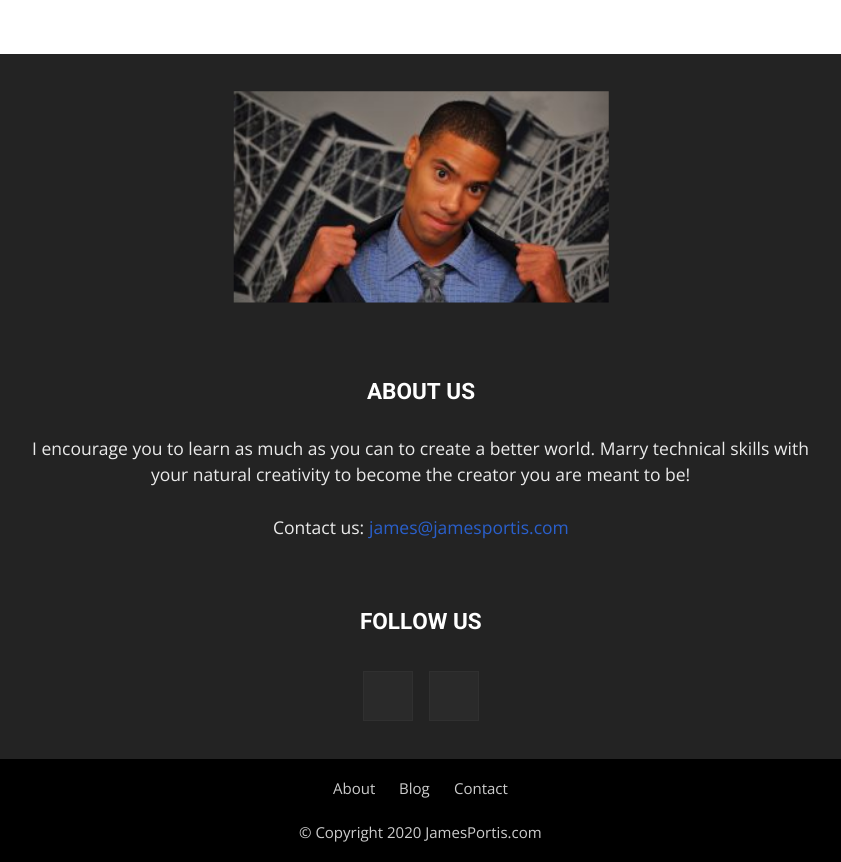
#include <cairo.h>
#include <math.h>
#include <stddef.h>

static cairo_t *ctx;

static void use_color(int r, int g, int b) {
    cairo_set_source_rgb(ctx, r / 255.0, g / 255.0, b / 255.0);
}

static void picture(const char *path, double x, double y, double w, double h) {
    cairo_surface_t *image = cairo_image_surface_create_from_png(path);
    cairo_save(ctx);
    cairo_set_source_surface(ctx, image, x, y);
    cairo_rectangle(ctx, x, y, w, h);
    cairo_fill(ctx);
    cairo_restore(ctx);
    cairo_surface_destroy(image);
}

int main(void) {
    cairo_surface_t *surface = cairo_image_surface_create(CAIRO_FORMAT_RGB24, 841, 862);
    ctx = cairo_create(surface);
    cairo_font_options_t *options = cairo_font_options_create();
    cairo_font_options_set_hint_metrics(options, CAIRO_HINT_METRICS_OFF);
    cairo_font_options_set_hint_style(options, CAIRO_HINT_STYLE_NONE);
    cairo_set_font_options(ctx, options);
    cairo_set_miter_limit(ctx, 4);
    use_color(255, 255, 255);
    cairo_paint(ctx);
    use_color(35, 35, 35);
    cairo_rectangle(ctx, 0, 54, 841, 705);
    cairo_fill(ctx);
    picture("img1.png", 233, 91, 376, 212);
    cairo_select_font_face(ctx, "Roboto", CAIRO_FONT_SLANT_NORMAL, CAIRO_FONT_WEIGHT_BOLD);
    cairo_set_font_size(ctx, 22.5);
    use_color(255, 255, 255);
    cairo_move_to(ctx, 367, 399);
    cairo_show_text(ctx, "ABOUT US");
    cairo_select_font_face(ctx, "Open Sans", CAIRO_FONT_SLANT_NORMAL, CAIRO_FONT_WEIGHT_NORMAL);
    cairo_set_font_size(ctx, 17.5);
    use_color(234, 234, 234);
    cairo_move_to(ctx, 32, 455);
    cairo_show_text(ctx, "I encourage you to learn as much as you can to create a better world. Marry technical skills with");
    cairo_move_to(ctx, 151, 481);
    cairo_show_text(ctx, "your natural creativity to become the creator you are meant to be!");
    cairo_move_to(ctx, 273, 534);
    cairo_show_text(ctx, "Contact us:");
    use_color(41, 95, 204);
    cairo_move_to(ctx, 369, 534);
    cairo_show_text(ctx, "james@jamesportis.com");
    cairo_select_font_face(ctx, "Roboto", CAIRO_FONT_SLANT_NORMAL, CAIRO_FONT_WEIGHT_BOLD);
    cairo_set_font_size(ctx, 22.5);
    use_color(255, 255, 255);
    cairo_move_to(ctx, 360, 629);
    cairo_show_text(ctx, "FOLLOW US");
    use_color(42, 42, 42);
    cairo_rectangle(ctx, 363.5, 671.5, 49, 49);
    cairo_fill_preserve(ctx);
    use_color(48, 48, 48);
    cairo_set_line_width(ctx, 1);
    cairo_stroke(ctx);
    use_color(42, 42, 42);
    cairo_rectangle(ctx, 429.5, 671.5, 49, 49);
    cairo_fill_preserve(ctx);
    use_color(48, 48, 48);
    cairo_stroke(ctx);
    use_color(0, 0, 0);
    cairo_rectangle(ctx, 0, 759, 841, 103);
    cairo_fill(ctx);
    cairo_select_font_face(ctx, "Open Sans", CAIRO_FONT_SLANT_NORMAL, CAIRO_FONT_WEIGHT_NORMAL);
    cairo_set_font_size(ctx, 15);
    use_color(204, 204, 204);
    cairo_move_to(ctx, 333, 794);
    cairo_show_text(ctx, "About");
    cairo_move_to(ctx, 399, 794);
    cairo_show_text(ctx, "Blog");
    cairo_move_to(ctx, 454, 794);
    cairo_show_text(ctx, "Contact");
    cairo_move_to(ctx, 299, 838);
    cairo_show_text(ctx, "© Copyright 2020 JamesPortis.com");
    cairo_surface_write_to_png(surface, "result.png");
    cairo_font_options_destroy(options);
    cairo_destroy(ctx);
    cairo_surface_destroy(surface);
    return 0;
}
